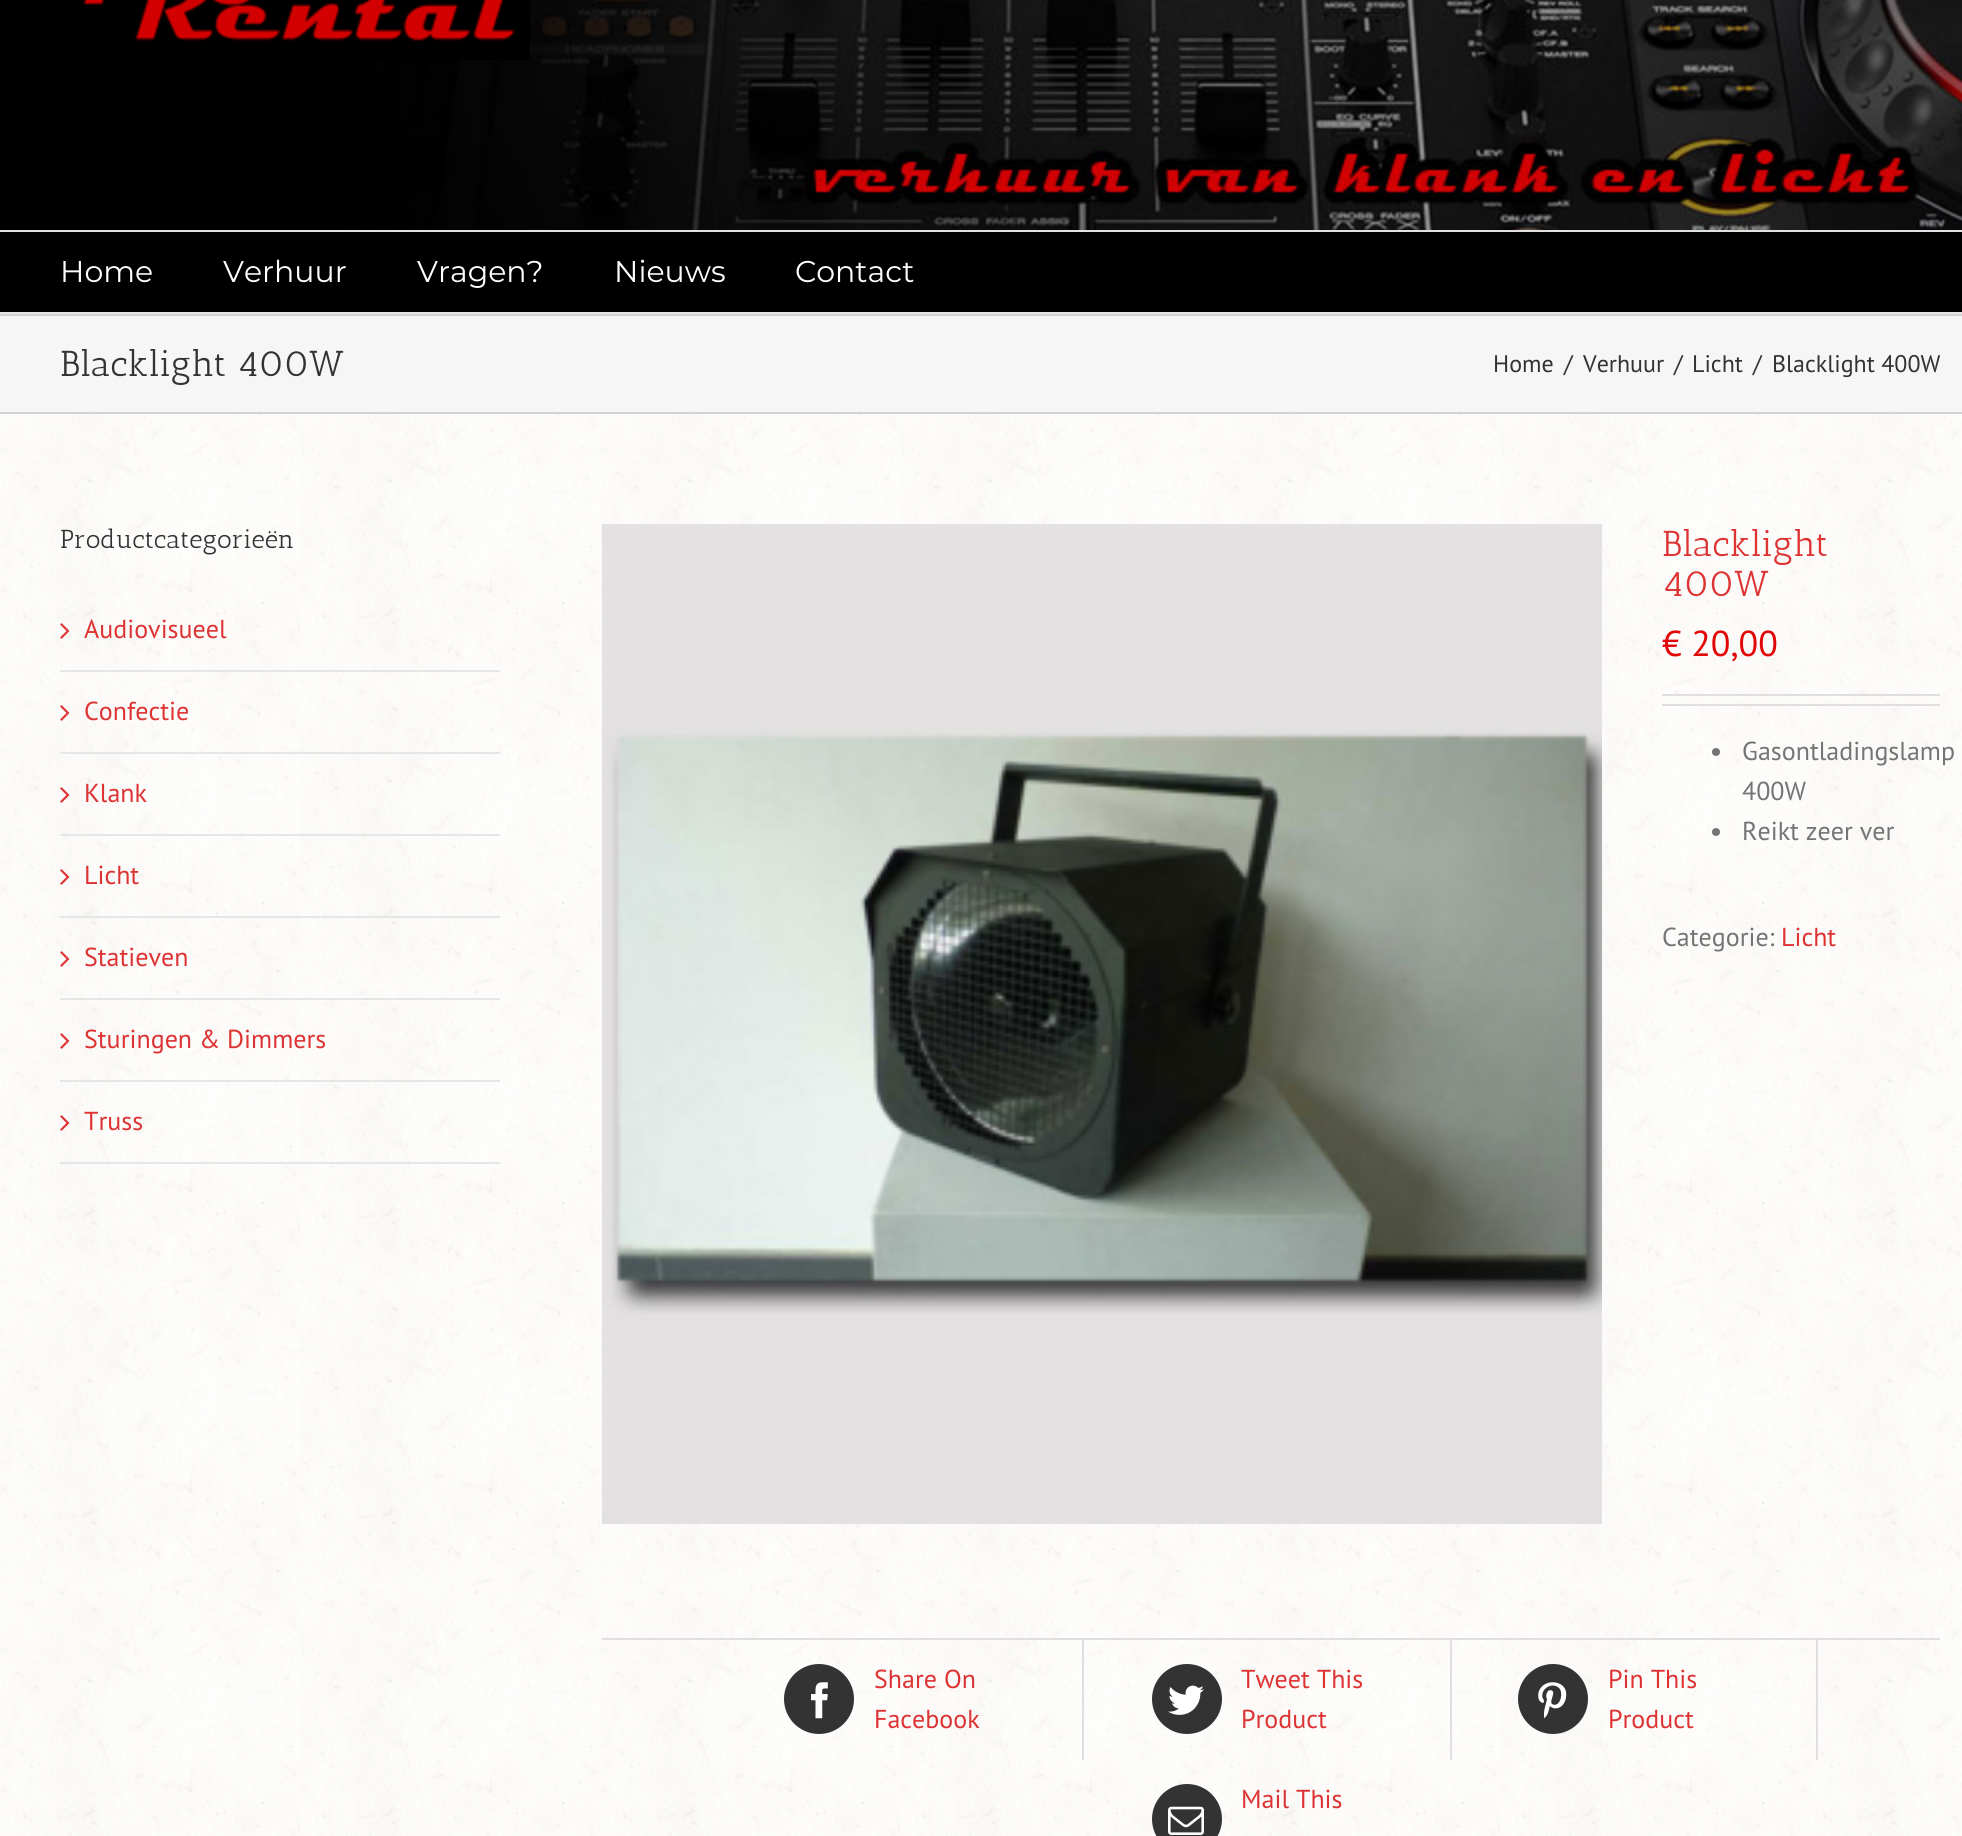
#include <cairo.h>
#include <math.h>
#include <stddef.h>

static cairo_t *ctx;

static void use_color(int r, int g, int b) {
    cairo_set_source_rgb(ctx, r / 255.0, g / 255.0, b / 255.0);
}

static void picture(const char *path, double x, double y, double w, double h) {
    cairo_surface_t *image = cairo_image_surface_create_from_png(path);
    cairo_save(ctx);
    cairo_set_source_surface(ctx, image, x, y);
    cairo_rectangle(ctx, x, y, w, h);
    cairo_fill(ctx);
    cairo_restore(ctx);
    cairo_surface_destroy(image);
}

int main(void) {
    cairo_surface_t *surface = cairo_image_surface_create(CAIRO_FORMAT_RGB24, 1962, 1836);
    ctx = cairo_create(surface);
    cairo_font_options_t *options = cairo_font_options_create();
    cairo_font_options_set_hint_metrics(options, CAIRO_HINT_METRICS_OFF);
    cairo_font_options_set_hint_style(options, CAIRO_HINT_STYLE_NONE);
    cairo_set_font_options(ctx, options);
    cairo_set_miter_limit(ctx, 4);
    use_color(255, 255, 255);
    cairo_paint(ctx);
    picture("img1.png", 0, 0, 1962, 230);
    use_color(225, 225, 225);
    cairo_rectangle(ctx, 0, 230, 1962, 2);
    cairo_fill(ctx);
    picture("img2.png", 83, 0, 447, 60);
    use_color(0, 0, 0);
    cairo_rectangle(ctx, 0, 232, 1962, 80);
    cairo_fill(ctx);
    use_color(229, 229, 229);
    cairo_rectangle(ctx, 0, 312, 1962, 2);
    cairo_fill(ctx);
    cairo_select_font_face(ctx, "Montserrat", CAIRO_FONT_SLANT_NORMAL, CAIRO_FONT_WEIGHT_NORMAL);
    cairo_set_font_size(ctx, 30);
    use_color(255, 255, 255);
    cairo_move_to(ctx, 60, 282);
    cairo_show_text(ctx, "Home");
    cairo_move_to(ctx, 223, 282);
    cairo_show_text(ctx, "Verhuur");
    cairo_move_to(ctx, 417, 282);
    cairo_show_text(ctx, "Vragen?");
    cairo_move_to(ctx, 614, 282);
    cairo_show_text(ctx, "Nieuws");
    cairo_move_to(ctx, 795, 282);
    cairo_show_text(ctx, "Contact");
    use_color(246, 246, 246);
    cairo_rectangle(ctx, 0, 316, 1962, 96);
    cairo_fill(ctx);
    use_color(210, 211, 212);
    cairo_rectangle(ctx, 0, 314, 1962, 2);
    cairo_fill(ctx);
    cairo_rectangle(ctx, 0, 412, 1962, 2);
    cairo_fill(ctx);
    cairo_select_font_face(ctx, "Antic Slab", CAIRO_FONT_SLANT_NORMAL, CAIRO_FONT_WEIGHT_NORMAL);
    cairo_set_font_size(ctx, 36);
    use_color(51, 51, 51);
    cairo_move_to(ctx, 60, 376);
    cairo_show_text(ctx, "Blacklight 400W");
    cairo_select_font_face(ctx, "PT Sans", CAIRO_FONT_SLANT_NORMAL, CAIRO_FONT_WEIGHT_NORMAL);
    cairo_set_font_size(ctx, 24);
    cairo_move_to(ctx, 1493, 372);
    cairo_show_text(ctx, "Home");
    cairo_move_to(ctx, 1564, 372);
    cairo_show_text(ctx, "/");
    cairo_move_to(ctx, 1583, 372);
    cairo_show_text(ctx, "Verhuur");
    cairo_move_to(ctx, 1674, 372);
    cairo_show_text(ctx, "/");
    cairo_move_to(ctx, 1692, 372);
    cairo_show_text(ctx, "Licht");
    cairo_move_to(ctx, 1753, 372);
    cairo_show_text(ctx, "/");
    cairo_move_to(ctx, 1772, 372);
    cairo_show_text(ctx, "Blacklight 400W");
    picture("img3.png", 0, 414, 1962, 1422);
    cairo_select_font_face(ctx, "Antic Slab", CAIRO_FONT_SLANT_NORMAL, CAIRO_FONT_WEIGHT_NORMAL);
    cairo_set_font_size(ctx, 26);
    cairo_move_to(ctx, 60, 548);
    cairo_show_text(ctx, "Productcategorieën");
    use_color(231, 230, 230);
    cairo_rectangle(ctx, 60, 670, 440, 2);
    cairo_fill(ctx);
    picture("img4.png", 60, 623, 10, 16);
    cairo_select_font_face(ctx, "PT Sans", CAIRO_FONT_SLANT_NORMAL, CAIRO_FONT_WEIGHT_NORMAL);
    use_color(221, 51, 51);
    cairo_move_to(ctx, 84, 638);
    cairo_show_text(ctx, "Audiovisueel");
    use_color(231, 230, 230);
    cairo_rectangle(ctx, 60, 752, 440, 2);
    cairo_fill(ctx);
    picture("img5.png", 60, 705, 10, 16);
    use_color(221, 51, 51);
    cairo_move_to(ctx, 84, 720);
    cairo_show_text(ctx, "Confectie");
    use_color(231, 230, 230);
    cairo_rectangle(ctx, 60, 834, 440, 2);
    cairo_fill(ctx);
    picture("img6.png", 60, 787, 10, 16);
    use_color(221, 51, 51);
    cairo_move_to(ctx, 84, 802);
    cairo_show_text(ctx, "Klank");
    use_color(231, 230, 230);
    cairo_rectangle(ctx, 60, 916, 440, 2);
    cairo_fill(ctx);
    picture("img7.png", 60, 869, 10, 16);
    use_color(221, 51, 51);
    cairo_move_to(ctx, 84, 884);
    cairo_show_text(ctx, "Licht");
    use_color(231, 230, 230);
    cairo_rectangle(ctx, 60, 998, 440, 2);
    cairo_fill(ctx);
    picture("img8.png", 60, 951, 10, 16);
    use_color(221, 51, 51);
    cairo_move_to(ctx, 84, 966);
    cairo_show_text(ctx, "Statieven");
    use_color(231, 230, 230);
    cairo_rectangle(ctx, 60, 1080, 440, 2);
    cairo_fill(ctx);
    picture("img9.png", 60, 1033, 10, 16);
    use_color(221, 51, 51);
    cairo_move_to(ctx, 84, 1048);
    cairo_show_text(ctx, "Sturingen & Dimmers");
    use_color(231, 230, 230);
    cairo_rectangle(ctx, 60, 1162, 440, 2);
    cairo_fill(ctx);
    picture("img10.png", 60, 1115, 10, 16);
    use_color(221, 51, 51);
    cairo_move_to(ctx, 84, 1130);
    cairo_show_text(ctx, "Truss");
    picture("img11.png", 602, 524, 1000, 1000);
    cairo_select_font_face(ctx, "Antic Slab", CAIRO_FONT_SLANT_NORMAL, CAIRO_FONT_WEIGHT_NORMAL);
    cairo_set_font_size(ctx, 36);
    cairo_move_to(ctx, 1662, 556);
    cairo_show_text(ctx, "Blacklight");
    cairo_move_to(ctx, 1662, 596);
    cairo_show_text(ctx, "400W");
    cairo_select_font_face(ctx, "PT Sans", CAIRO_FONT_SLANT_NORMAL, CAIRO_FONT_WEIGHT_NORMAL);
    use_color(225, 7, 7);
    cairo_move_to(ctx, 1662, 656);
    cairo_show_text(ctx, "€ 20,00");
    use_color(224, 222, 222);
    cairo_rectangle(ctx, 1662, 694, 278, 2);
    cairo_fill(ctx);
    cairo_rectangle(ctx, 1662, 704, 278, 2);
    cairo_fill(ctx);
    use_color(116, 116, 116);
    cairo_arc(ctx, 1716, 752, 4, 0, 2 * M_PI);
    cairo_fill(ctx);
    cairo_set_font_size(ctx, 26);
    cairo_move_to(ctx, 1742, 760);
    cairo_show_text(ctx, "Gasontladingslamp");
    cairo_move_to(ctx, 1742, 800);
    cairo_show_text(ctx, "400W");
    cairo_new_path(ctx);
    cairo_arc(ctx, 1716, 832, 4, 0, 2 * M_PI);
    cairo_fill(ctx);
    cairo_move_to(ctx, 1742, 840);
    cairo_show_text(ctx, "Reikt zeer ver");
    cairo_move_to(ctx, 1662, 946);
    cairo_show_text(ctx, "Categorie:");
    use_color(221, 51, 51);
    cairo_move_to(ctx, 1781, 946);
    cairo_show_text(ctx, "Licht");
    use_color(224, 222, 222);
    cairo_rectangle(ctx, 602, 1638, 1338, 2);
    cairo_fill(ctx);
    cairo_rectangle(ctx, 1082, 1640, 2, 120);
    cairo_fill(ctx);
    use_color(51, 51, 51);
    cairo_arc(ctx, 819, 1699, 34, 0, 2 * M_PI);
    cairo_fill_preserve(ctx);
    cairo_stroke(ctx);
    picture("img12.png", 811, 1682, 17, 37);
    use_color(221, 51, 51);
    cairo_move_to(ctx, 874, 1688);
    cairo_show_text(ctx, "Share On");
    cairo_move_to(ctx, 874, 1728);
    cairo_show_text(ctx, "Facebook");
    use_color(224, 222, 222);
    cairo_rectangle(ctx, 1450, 1640, 2, 120);
    cairo_fill(ctx);
    use_color(51, 51, 51);
    cairo_arc(ctx, 1187, 1699, 34, 0, 2 * M_PI);
    cairo_fill_preserve(ctx);
    cairo_stroke(ctx);
    picture("img13.png", 1168, 1685, 36, 30);
    use_color(221, 51, 51);
    cairo_move_to(ctx, 1241, 1688);
    cairo_show_text(ctx, "Tweet This");
    cairo_move_to(ctx, 1241, 1728);
    cairo_show_text(ctx, "Product");
    use_color(224, 222, 222);
    cairo_rectangle(ctx, 1816, 1640, 2, 120);
    cairo_fill(ctx);
    use_color(51, 51, 51);
    cairo_arc(ctx, 1553, 1699, 34, 0, 2 * M_PI);
    cairo_fill_preserve(ctx);
    cairo_stroke(ctx);
    picture("img14.png", 1538, 1682, 29, 37);
    use_color(221, 51, 51);
    cairo_move_to(ctx, 1608, 1688);
    cairo_show_text(ctx, "Pin This");
    cairo_move_to(ctx, 1608, 1728);
    cairo_show_text(ctx, "Product");
    use_color(51, 51, 51);
    cairo_new_path(ctx);
    cairo_arc(ctx, 1187, 1819, 34, 0, 2 * M_PI);
    cairo_fill_preserve(ctx);
    cairo_stroke(ctx);
    picture("img15.png", 1168, 1806, 36, 29);
    use_color(221, 51, 51);
    cairo_move_to(ctx, 1241, 1808);
    cairo_show_text(ctx, "Mail This");
    cairo_surface_write_to_png(surface, "result.png");
    cairo_font_options_destroy(options);
    cairo_destroy(ctx);
    cairo_surface_destroy(surface);
    return 0;
}
